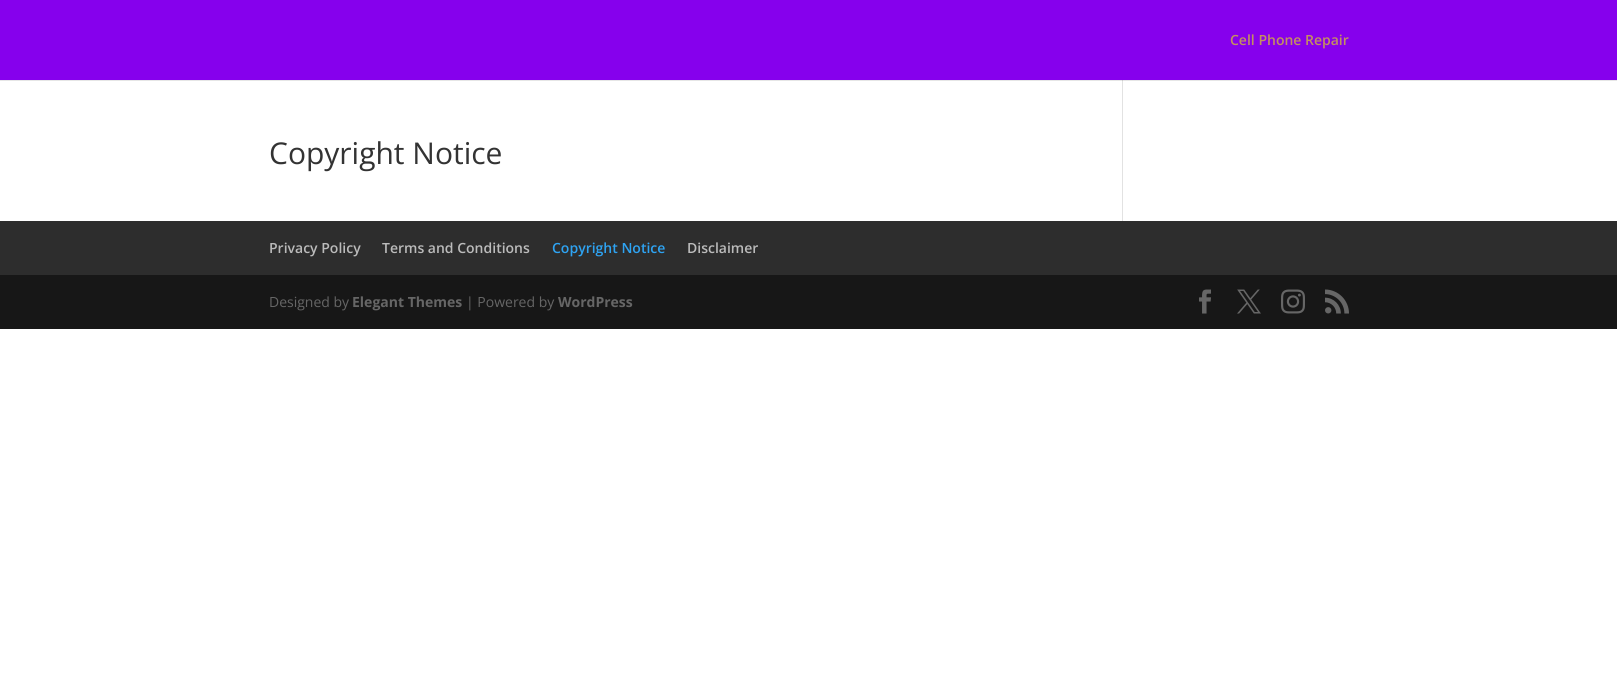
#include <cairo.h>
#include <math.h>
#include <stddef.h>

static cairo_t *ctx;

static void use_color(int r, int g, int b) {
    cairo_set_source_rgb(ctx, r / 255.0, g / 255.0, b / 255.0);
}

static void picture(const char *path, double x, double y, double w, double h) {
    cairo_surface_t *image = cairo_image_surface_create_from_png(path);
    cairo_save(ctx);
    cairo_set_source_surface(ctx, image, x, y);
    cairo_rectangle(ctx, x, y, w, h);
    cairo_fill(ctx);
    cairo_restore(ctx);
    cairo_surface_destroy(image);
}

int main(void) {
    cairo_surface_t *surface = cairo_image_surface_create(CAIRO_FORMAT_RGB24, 1617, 687);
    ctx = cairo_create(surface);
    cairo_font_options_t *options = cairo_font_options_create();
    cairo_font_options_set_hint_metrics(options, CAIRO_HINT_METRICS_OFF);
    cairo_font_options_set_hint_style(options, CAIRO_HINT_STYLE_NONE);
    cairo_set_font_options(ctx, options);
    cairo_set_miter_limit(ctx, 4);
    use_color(255, 255, 255);
    cairo_paint(ctx);
    use_color(230, 230, 230);
    cairo_rectangle(ctx, 0, 80, 1617, 1);
    cairo_fill(ctx);
    use_color(134, 0, 237);
    cairo_rectangle(ctx, 0, 0, 1617, 80);
    cairo_fill(ctx);
    cairo_select_font_face(ctx, "Open Sans SemiBold", CAIRO_FONT_SLANT_NORMAL, CAIRO_FONT_WEIGHT_NORMAL);
    cairo_set_font_size(ctx, 14);
    use_color(196, 144, 95);
    cairo_move_to(ctx, 1230, 45);
    cairo_show_text(ctx, "Cell Phone Repair");
    cairo_select_font_face(ctx, "Open Sans", CAIRO_FONT_SLANT_NORMAL, CAIRO_FONT_WEIGHT_NORMAL);
    cairo_set_font_size(ctx, 30);
    use_color(51, 51, 51);
    cairo_move_to(ctx, 269, 164);
    cairo_show_text(ctx, "Copyright Notice");
    use_color(226, 226, 226);
    cairo_rectangle(ctx, 1122, 80, 1, 141);
    cairo_fill(ctx);
    use_color(203, 203, 203);
    cairo_rectangle(ctx, 1122, 80, 1, 1);
    cairo_fill(ctx);
    use_color(45, 45, 45);
    cairo_rectangle(ctx, 0, 221, 1617, 54);
    cairo_fill(ctx);
    cairo_select_font_face(ctx, "Open Sans SemiBold", CAIRO_FONT_SLANT_NORMAL, CAIRO_FONT_WEIGHT_NORMAL);
    cairo_set_font_size(ctx, 14);
    use_color(187, 187, 187);
    cairo_move_to(ctx, 269, 253);
    cairo_show_text(ctx, "Privacy Policy");
    cairo_move_to(ctx, 382, 253);
    cairo_show_text(ctx, "Terms and Conditions");
    use_color(46, 163, 242);
    cairo_move_to(ctx, 552, 253);
    cairo_show_text(ctx, "Copyright Notice");
    use_color(187, 187, 187);
    cairo_move_to(ctx, 687, 253);
    cairo_show_text(ctx, "Disclaimer");
    use_color(23, 23, 23);
    cairo_rectangle(ctx, 0, 275, 1617, 54);
    cairo_fill(ctx);
    cairo_select_font_face(ctx, "Open Sans", CAIRO_FONT_SLANT_NORMAL, CAIRO_FONT_WEIGHT_NORMAL);
    use_color(102, 102, 102);
    cairo_move_to(ctx, 269, 307);
    cairo_show_text(ctx, "Designed by");
    cairo_select_font_face(ctx, "Open Sans", CAIRO_FONT_SLANT_NORMAL, CAIRO_FONT_WEIGHT_BOLD);
    cairo_move_to(ctx, 352, 307);
    cairo_show_text(ctx, "Elegant Themes");
    cairo_select_font_face(ctx, "Open Sans", CAIRO_FONT_SLANT_NORMAL, CAIRO_FONT_WEIGHT_NORMAL);
    cairo_move_to(ctx, 466, 307);
    cairo_show_text(ctx, "| Powered by");
    cairo_select_font_face(ctx, "Open Sans", CAIRO_FONT_SLANT_NORMAL, CAIRO_FONT_WEIGHT_BOLD);
    cairo_move_to(ctx, 558, 307);
    cairo_show_text(ctx, "WordPress");
    picture("img1.png", 1199, 289, 12, 25);
    picture("img2.png", 1237, 289, 24, 25);
    picture("img3.png", 1281, 289, 24, 25);
    picture("img4.png", 1325, 289, 24, 25);
    cairo_surface_write_to_png(surface, "result.png");
    cairo_font_options_destroy(options);
    cairo_destroy(ctx);
    cairo_surface_destroy(surface);
    return 0;
}
